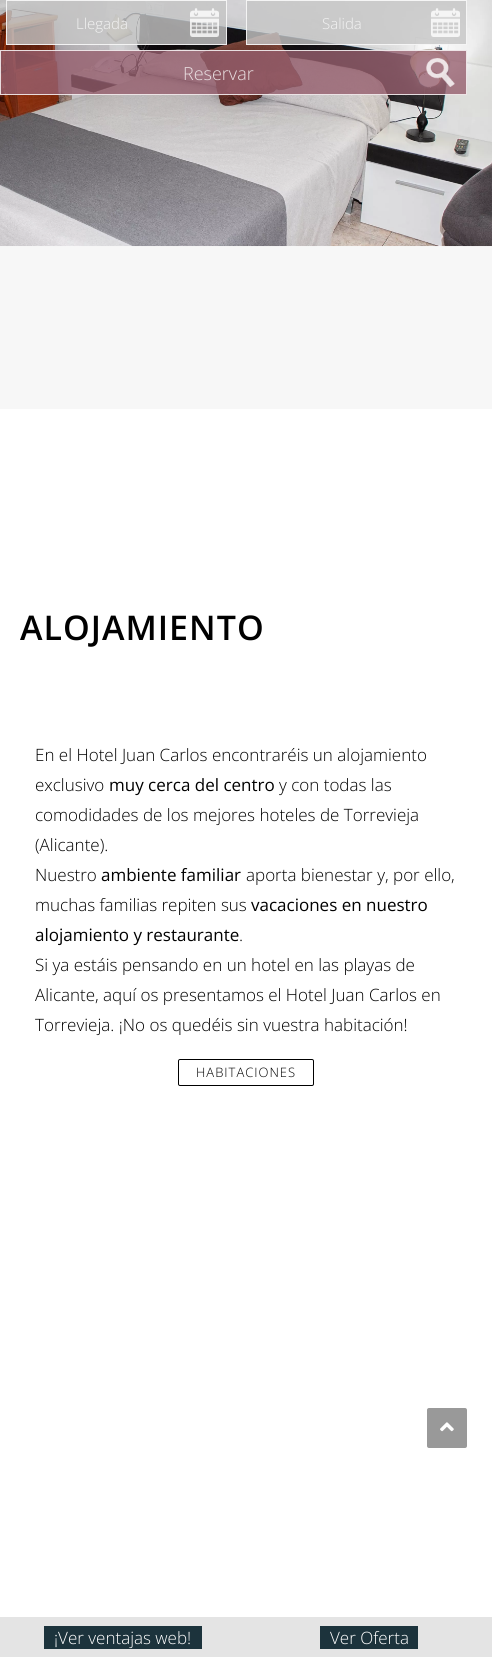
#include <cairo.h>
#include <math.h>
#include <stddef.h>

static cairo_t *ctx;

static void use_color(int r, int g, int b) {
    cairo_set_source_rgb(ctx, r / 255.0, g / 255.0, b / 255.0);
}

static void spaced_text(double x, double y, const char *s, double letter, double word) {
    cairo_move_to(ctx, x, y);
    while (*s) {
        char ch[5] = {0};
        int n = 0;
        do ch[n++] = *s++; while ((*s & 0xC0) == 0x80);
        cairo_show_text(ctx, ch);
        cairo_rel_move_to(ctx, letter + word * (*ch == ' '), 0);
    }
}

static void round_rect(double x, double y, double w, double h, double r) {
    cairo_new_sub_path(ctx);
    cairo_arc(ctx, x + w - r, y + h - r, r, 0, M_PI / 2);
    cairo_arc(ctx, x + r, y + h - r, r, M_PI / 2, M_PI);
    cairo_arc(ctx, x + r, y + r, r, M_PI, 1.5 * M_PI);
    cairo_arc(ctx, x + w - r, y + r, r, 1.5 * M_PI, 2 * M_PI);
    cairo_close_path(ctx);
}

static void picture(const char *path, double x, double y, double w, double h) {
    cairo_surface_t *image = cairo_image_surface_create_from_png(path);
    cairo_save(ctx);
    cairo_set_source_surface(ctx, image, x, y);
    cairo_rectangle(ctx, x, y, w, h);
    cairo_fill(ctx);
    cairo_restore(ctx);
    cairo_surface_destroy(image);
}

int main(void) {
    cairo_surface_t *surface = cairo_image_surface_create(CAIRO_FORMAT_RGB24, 492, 1657);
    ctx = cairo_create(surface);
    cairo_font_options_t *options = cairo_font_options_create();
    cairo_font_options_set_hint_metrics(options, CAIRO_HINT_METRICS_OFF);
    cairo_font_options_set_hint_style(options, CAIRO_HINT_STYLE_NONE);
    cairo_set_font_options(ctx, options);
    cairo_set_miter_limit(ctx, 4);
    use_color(255, 255, 255);
    cairo_paint(ctx);
    use_color(247, 247, 247);
    cairo_rectangle(ctx, 0, 0, 492, 409);
    cairo_fill(ctx);
    picture("img1.png", 0, 0, 492, 247);
    use_color(197, 197, 197);
    cairo_rectangle(ctx, 20, 1, 5, 3);
    cairo_fill(ctx);
    cairo_set_source_rgba(ctx, 0.773, 0.773, 0.773, 0.8);
    cairo_rectangle(ctx, 6, 0, 221, 45);
    cairo_fill(ctx);
    picture("img2.png", 190, 8, 29, 29);
    cairo_rectangle(ctx, 6.5, 0.5, 220, 44);
    cairo_set_source_rgba(ctx, 1, 1, 1, 0.8);
    cairo_set_line_width(ctx, 1);
    cairo_stroke(ctx);
    cairo_select_font_face(ctx, "Open Sans Light", CAIRO_FONT_SLANT_NORMAL, CAIRO_FONT_WEIGHT_NORMAL);
    cairo_set_font_size(ctx, 15);
    use_color(243, 243, 243);
    cairo_move_to(ctx, 76, 29);
    cairo_show_text(ctx, "Llegada");
    cairo_set_source_rgba(ctx, 0.773, 0.773, 0.773, 0.8);
    cairo_rectangle(ctx, 246, 0, 221, 45);
    cairo_fill(ctx);
    picture("img3.png", 431, 8, 29, 29);
    cairo_rectangle(ctx, 246.5, 0.5, 220, 44);
    cairo_set_source_rgba(ctx, 1, 1, 1, 0.8);
    cairo_stroke(ctx);
    use_color(243, 243, 243);
    cairo_move_to(ctx, 322, 29);
    cairo_show_text(ctx, "Salida");
    cairo_set_source_rgba(ctx, 0.588, 0.373, 0.431, 0.8);
    cairo_rectangle(ctx, 0, 50, 467, 45);
    cairo_fill(ctx);
    picture("img4.png", 426, 58, 29, 29);
    cairo_rectangle(ctx, 0.5, 50.5, 466, 44);
    cairo_set_source_rgba(ctx, 1, 1, 1, 0.8);
    cairo_stroke(ctx);
    cairo_set_font_size(ctx, 18);
    use_color(234, 224, 226);
    cairo_move_to(ctx, 183, 80);
    cairo_show_text(ctx, "Reservar");
    use_color(228, 228, 228);
    cairo_rectangle(ctx, 0, 1617, 492, 40);
    cairo_fill(ctx);
    use_color(28, 51, 60);
    cairo_rectangle(ctx, 44, 1626, 158, 23);
    cairo_fill(ctx);
    cairo_set_font_size(ctx, 17);
    use_color(255, 255, 255);
    cairo_move_to(ctx, 54, 1644);
    cairo_show_text(ctx, "¡Ver ventajas web!");
    use_color(28, 51, 60);
    cairo_rectangle(ctx, 320, 1626, 98, 23);
    cairo_fill(ctx);
    use_color(255, 255, 255);
    cairo_move_to(ctx, 330, 1644);
    cairo_show_text(ctx, "Ver Oferta");
    cairo_select_font_face(ctx, "Open Sans SemiBold", CAIRO_FONT_SLANT_NORMAL, CAIRO_FONT_WEIGHT_NORMAL);
    cairo_set_font_size(ctx, 34);
    use_color(0, 0, 0);
    spaced_text(20, 640, "ALOJAMIENTO", 1, 0);
    cairo_select_font_face(ctx, "Open Sans Light", CAIRO_FONT_SLANT_NORMAL, CAIRO_FONT_WEIGHT_NORMAL);
    cairo_set_font_size(ctx, 17);
    cairo_move_to(ctx, 35, 761);
    cairo_show_text(ctx, "En el Hotel Juan Carlos encontraréis un alojamiento");
    cairo_move_to(ctx, 35, 791);
    cairo_show_text(ctx, "exclusivo");
    cairo_select_font_face(ctx, "Open Sans", CAIRO_FONT_SLANT_NORMAL, CAIRO_FONT_WEIGHT_NORMAL);
    cairo_move_to(ctx, 109, 791);
    cairo_show_text(ctx, "muy cerca del centro");
    cairo_select_font_face(ctx, "Open Sans Light", CAIRO_FONT_SLANT_NORMAL, CAIRO_FONT_WEIGHT_NORMAL);
    cairo_move_to(ctx, 279, 791);
    cairo_show_text(ctx, "y con todas las");
    cairo_move_to(ctx, 35, 821);
    cairo_show_text(ctx, "comodidades de los mejores hoteles de Torrevieja");
    cairo_move_to(ctx, 35, 851);
    cairo_show_text(ctx, "(Alicante).");
    cairo_move_to(ctx, 35, 881);
    cairo_show_text(ctx, "Nuestro");
    cairo_select_font_face(ctx, "Open Sans", CAIRO_FONT_SLANT_NORMAL, CAIRO_FONT_WEIGHT_NORMAL);
    cairo_move_to(ctx, 101, 881);
    cairo_show_text(ctx, "ambiente familiar");
    cairo_select_font_face(ctx, "Open Sans Light", CAIRO_FONT_SLANT_NORMAL, CAIRO_FONT_WEIGHT_NORMAL);
    cairo_move_to(ctx, 246, 881);
    cairo_show_text(ctx, "aporta bienestar y, por ello,");
    cairo_move_to(ctx, 35, 911);
    cairo_show_text(ctx, "muchas familias repiten sus");
    cairo_select_font_face(ctx, "Open Sans", CAIRO_FONT_SLANT_NORMAL, CAIRO_FONT_WEIGHT_NORMAL);
    cairo_move_to(ctx, 251, 911);
    cairo_show_text(ctx, "vacaciones en nuestro");
    cairo_move_to(ctx, 35, 941);
    cairo_show_text(ctx, "alojamiento y restaurante");
    cairo_select_font_face(ctx, "Open Sans Light", CAIRO_FONT_SLANT_NORMAL, CAIRO_FONT_WEIGHT_NORMAL);
    cairo_move_to(ctx, 239, 941);
    cairo_show_text(ctx, ".");
    cairo_move_to(ctx, 35, 971);
    cairo_show_text(ctx, "Si ya estáis pensando en un hotel en las playas de");
    cairo_move_to(ctx, 35, 1001);
    cairo_show_text(ctx, "Alicante, aquí os presentamos el Hotel Juan Carlos en");
    cairo_move_to(ctx, 35, 1031);
    cairo_show_text(ctx, "Torrevieja. ¡No os quedéis sin vuestra habitación!");
    round_rect(178.5, 1059.5, 135, 26, 1.5);
    cairo_stroke(ctx);
    cairo_set_font_size(ctx, 13);
    spaced_text(196, 1077, "HABITACIONES", 1, 0);
    use_color(153, 153, 153);
    round_rect(427, 1408, 40, 40, 2);
    cairo_fill(ctx);
    picture("img5.png", 440, 1422, 14, 10);
    cairo_surface_write_to_png(surface, "result.png");
    cairo_font_options_destroy(options);
    cairo_destroy(ctx);
    cairo_surface_destroy(surface);
    return 0;
}
